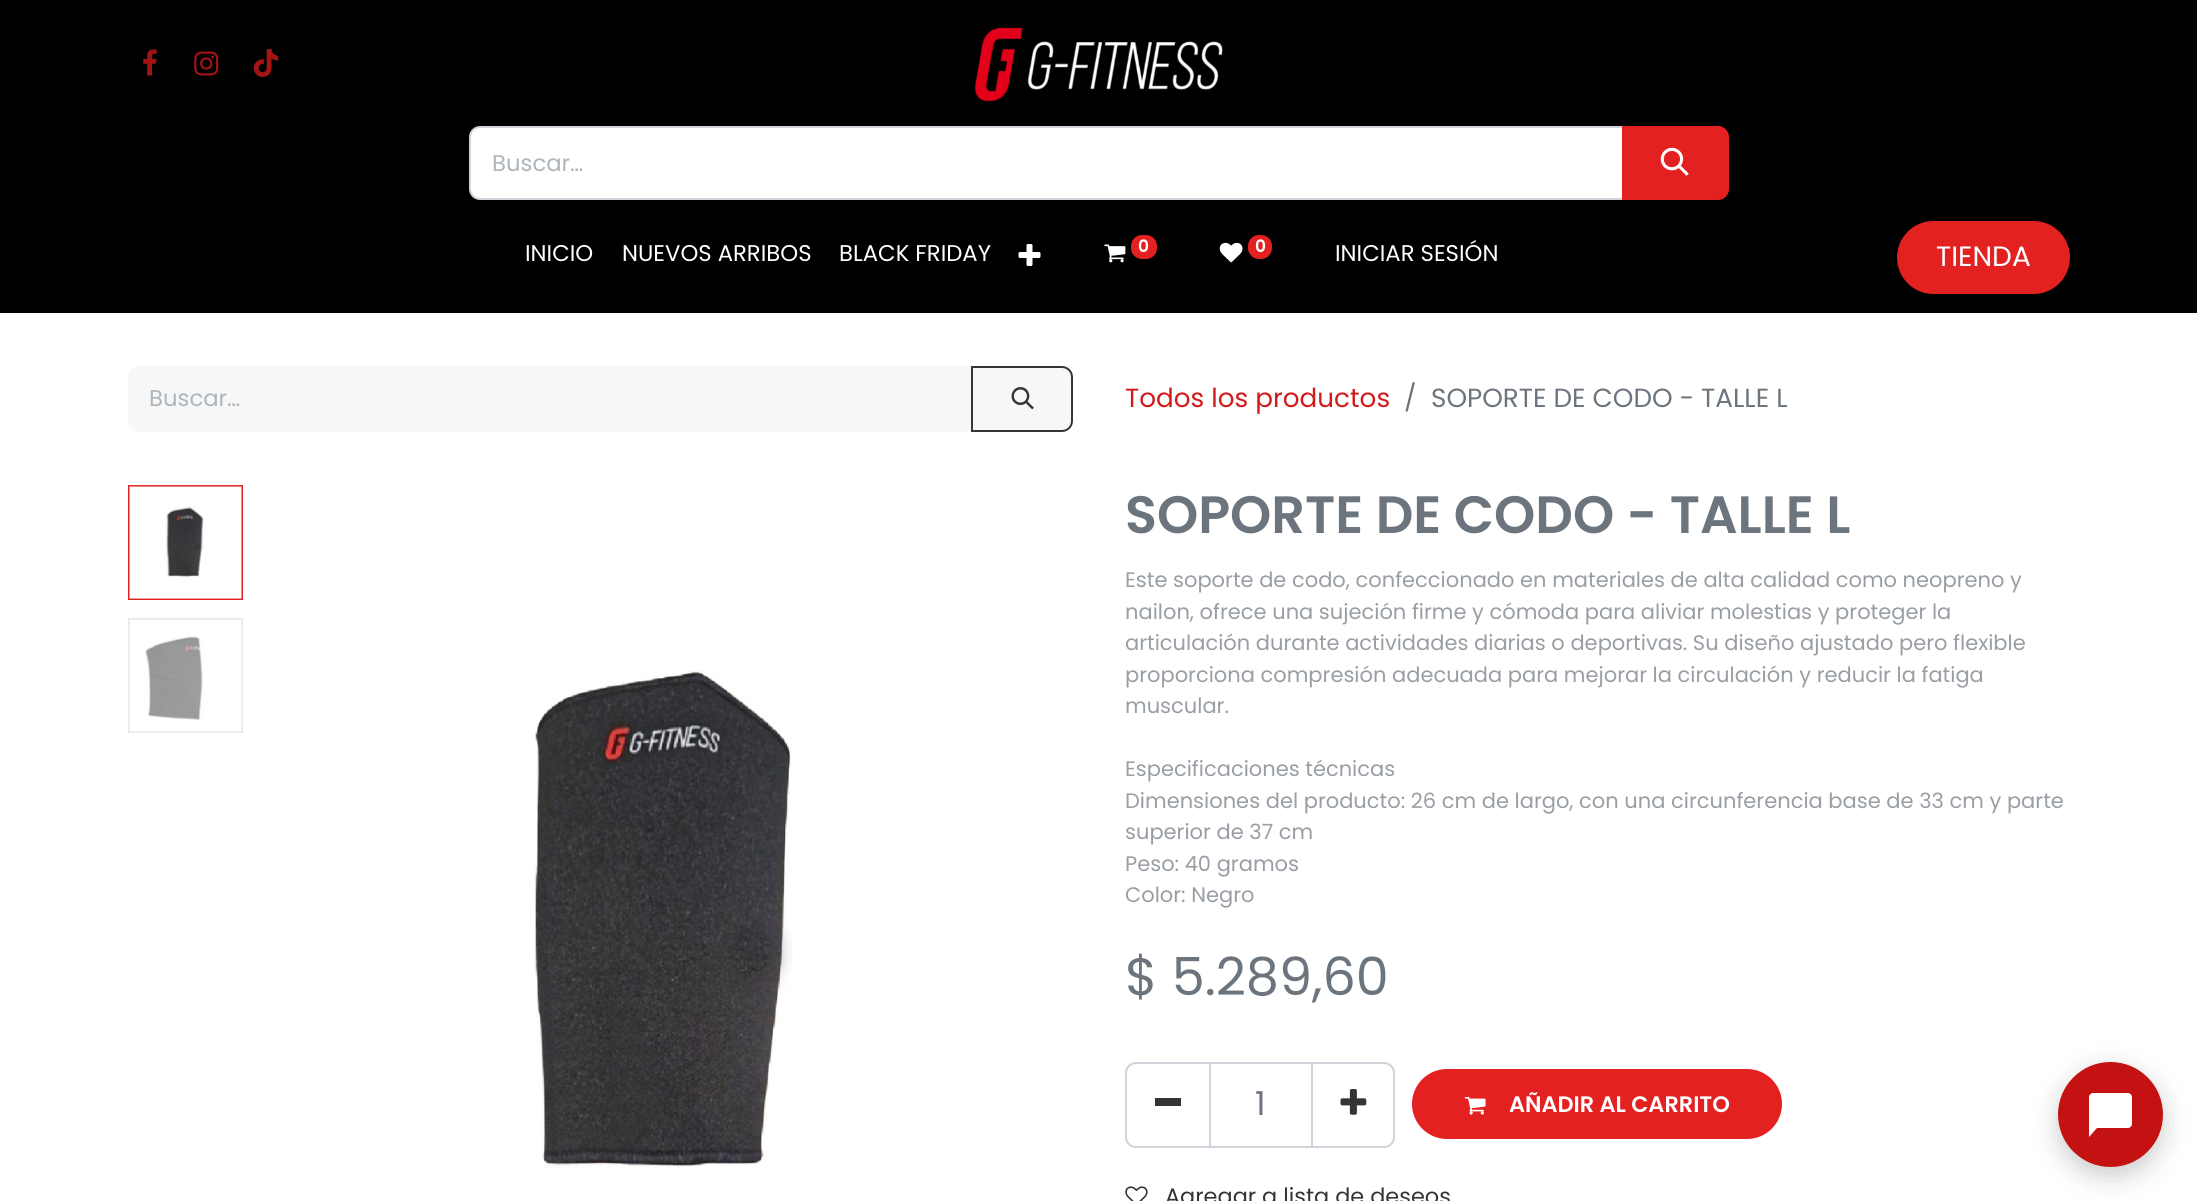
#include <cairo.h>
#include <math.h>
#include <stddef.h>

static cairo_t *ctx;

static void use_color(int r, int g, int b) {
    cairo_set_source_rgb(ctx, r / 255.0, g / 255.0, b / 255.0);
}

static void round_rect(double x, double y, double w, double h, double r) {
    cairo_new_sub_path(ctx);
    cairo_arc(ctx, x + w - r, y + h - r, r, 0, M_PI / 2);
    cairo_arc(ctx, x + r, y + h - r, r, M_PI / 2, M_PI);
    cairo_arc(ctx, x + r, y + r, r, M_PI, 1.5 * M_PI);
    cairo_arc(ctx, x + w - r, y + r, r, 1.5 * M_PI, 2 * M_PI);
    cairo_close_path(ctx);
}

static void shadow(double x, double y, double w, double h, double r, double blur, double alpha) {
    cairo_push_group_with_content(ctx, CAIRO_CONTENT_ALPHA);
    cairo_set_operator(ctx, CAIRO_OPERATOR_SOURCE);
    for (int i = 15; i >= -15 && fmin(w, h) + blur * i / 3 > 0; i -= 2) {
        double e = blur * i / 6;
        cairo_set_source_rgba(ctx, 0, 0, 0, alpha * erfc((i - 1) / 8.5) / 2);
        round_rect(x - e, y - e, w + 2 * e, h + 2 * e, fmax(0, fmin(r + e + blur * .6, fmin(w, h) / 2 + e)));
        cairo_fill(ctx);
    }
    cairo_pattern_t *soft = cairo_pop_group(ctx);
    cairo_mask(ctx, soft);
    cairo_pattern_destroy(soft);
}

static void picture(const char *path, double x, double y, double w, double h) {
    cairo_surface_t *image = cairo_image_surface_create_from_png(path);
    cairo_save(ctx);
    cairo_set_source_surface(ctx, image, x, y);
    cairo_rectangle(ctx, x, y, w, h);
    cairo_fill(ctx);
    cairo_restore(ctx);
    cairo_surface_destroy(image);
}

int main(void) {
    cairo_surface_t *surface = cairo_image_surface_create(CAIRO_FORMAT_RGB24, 2197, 1201);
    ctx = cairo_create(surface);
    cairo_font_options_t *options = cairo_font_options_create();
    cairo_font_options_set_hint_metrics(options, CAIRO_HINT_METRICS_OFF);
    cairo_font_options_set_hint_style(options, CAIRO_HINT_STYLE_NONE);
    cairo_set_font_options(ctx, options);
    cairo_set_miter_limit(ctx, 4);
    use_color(255, 255, 255);
    cairo_paint(ctx);
    use_color(0, 0, 0);
    cairo_rectangle(ctx, 0, 0, 2197, 313);
    cairo_fill(ctx);
    picture("img1.png", 143, 49, 14, 27);
    picture("img2.png", 194, 51, 25, 25);
    picture("img3.png", 253, 49, 26, 28);
    picture("img4.png", 974, 27, 249, 75);
    use_color(255, 255, 255);
    cairo_new_path(ctx);
    cairo_move_to(ctx, 480, 127);
    cairo_line_to(ctx, 1623, 127);
    cairo_line_to(ctx, 1623, 199);
    cairo_line_to(ctx, 480, 199);
    cairo_curve_to(ctx, 474.5, 199, 470, 194.5, 470, 189);
    cairo_line_to(ctx, 470, 137);
    cairo_curve_to(ctx, 470, 131.5, 474.5, 127, 480, 127);
    cairo_close_path(ctx);
    cairo_fill_preserve(ctx);
    use_color(206, 212, 218);
    cairo_stroke(ctx);
    cairo_select_font_face(ctx, "Poppins", CAIRO_FONT_SLANT_NORMAL, CAIRO_FONT_WEIGHT_NORMAL);
    cairo_set_font_size(ctx, 22.75);
    use_color(173, 181, 189);
    cairo_move_to(ctx, 492, 171);
    cairo_show_text(ctx, "Buscar…");
    use_color(228, 33, 33);
    cairo_new_path(ctx);
    cairo_move_to(ctx, 1623, 127);
    cairo_line_to(ctx, 1718, 127);
    cairo_curve_to(ctx, 1723.5, 127, 1728, 131.5, 1728, 137);
    cairo_line_to(ctx, 1728, 189);
    cairo_curve_to(ctx, 1728, 194.5, 1723.5, 199, 1718, 199);
    cairo_line_to(ctx, 1623, 199);
    cairo_close_path(ctx);
    cairo_fill_preserve(ctx);
    cairo_stroke(ctx);
    picture("img5.png", 1660, 147, 29, 29);
    use_color(255, 255, 255);
    cairo_move_to(ctx, 525, 261);
    cairo_show_text(ctx, "INICIO");
    cairo_move_to(ctx, 622, 261);
    cairo_show_text(ctx, "NUEVOS ARRIBOS");
    cairo_move_to(ctx, 839, 261);
    cairo_show_text(ctx, "BLACK FRIDAY");
    picture("img6.png", 1018, 244, 23, 22);
    picture("img7.png", 1104, 244, 22, 19);
    use_color(228, 33, 33);
    round_rect(1131, 235, 26, 24, 11);
    cairo_fill(ctx);
    cairo_select_font_face(ctx, "Poppins SemiBold", CAIRO_FONT_SLANT_NORMAL, CAIRO_FONT_WEIGHT_NORMAL);
    cairo_set_font_size(ctx, 17);
    use_color(255, 255, 255);
    cairo_move_to(ctx, 1138, 252);
    cairo_show_text(ctx, "0");
    picture("img8.png", 1219, 242, 24, 21);
    use_color(228, 33, 33);
    round_rect(1248, 235, 24, 24, 11);
    cairo_fill(ctx);
    use_color(255, 255, 255);
    cairo_move_to(ctx, 1255, 252);
    cairo_show_text(ctx, "0");
    cairo_select_font_face(ctx, "Poppins", CAIRO_FONT_SLANT_NORMAL, CAIRO_FONT_WEIGHT_NORMAL);
    cairo_set_font_size(ctx, 22.75);
    cairo_move_to(ctx, 1335, 261);
    cairo_show_text(ctx, "INICIAR SESIÓN");
    use_color(228, 33, 33);
    round_rect(1898, 222, 171, 71, 35.5);
    cairo_fill_preserve(ctx);
    cairo_stroke(ctx);
    cairo_set_font_size(ctx, 28);
    use_color(255, 255, 255);
    cairo_move_to(ctx, 1936, 266);
    cairo_show_text(ctx, "TIENDA");
    use_color(247, 247, 247);
    cairo_new_path(ctx);
    cairo_move_to(ctx, 139, 366);
    cairo_line_to(ctx, 973, 366);
    cairo_line_to(ctx, 973, 432);
    cairo_line_to(ctx, 139, 432);
    cairo_curve_to(ctx, 133, 432, 128, 427, 128, 421);
    cairo_line_to(ctx, 128, 377);
    cairo_curve_to(ctx, 128, 371, 133, 366, 139, 366);
    cairo_close_path(ctx);
    cairo_fill(ctx);
    cairo_set_font_size(ctx, 22.75);
    use_color(173, 181, 189);
    cairo_move_to(ctx, 149, 406);
    cairo_show_text(ctx, "Buscar…");
    use_color(247, 247, 247);
    cairo_new_path(ctx);
    cairo_move_to(ctx, 972, 367);
    cairo_line_to(ctx, 1062, 367);
    cairo_curve_to(ctx, 1067.5, 367, 1072, 371.5, 1072, 377);
    cairo_line_to(ctx, 1072, 421);
    cairo_curve_to(ctx, 1072, 426.5, 1067.5, 431, 1062, 431);
    cairo_line_to(ctx, 972, 431);
    cairo_close_path(ctx);
    cairo_fill_preserve(ctx);
    use_color(53, 53, 53);
    cairo_stroke(ctx);
    picture("img9.png", 1011, 387, 23, 23);
    cairo_set_font_size(ctx, 26.25);
    use_color(210, 26, 26);
    cairo_move_to(ctx, 1125, 407);
    cairo_show_text(ctx, "Todos los productos");
    use_color(108, 117, 125);
    cairo_move_to(ctx, 1404, 407);
    cairo_show_text(ctx, "/");
    cairo_move_to(ctx, 1431, 407);
    cairo_show_text(ctx, "SOPORTE DE CODO - TALLE L");
    cairo_rectangle(ctx, 129, 486, 113, 113);
    use_color(228, 33, 33);
    cairo_stroke(ctx);
    picture("img10.png", 129, 485, 113, 114);
    cairo_rectangle(ctx, 129, 619, 113, 113);
    use_color(231, 234, 237);
    cairo_stroke(ctx);
    picture("img11.png", 129, 619, 113, 113);
    picture("img12.png", 534, 671, 259, 497);
    cairo_select_font_face(ctx, "Poppins SemiBold", CAIRO_FONT_SLANT_NORMAL, CAIRO_FONT_WEIGHT_NORMAL);
    cairo_set_font_size(ctx, 52.5);
    use_color(108, 117, 125);
    cairo_move_to(ctx, 1125, 533);
    cairo_show_text(ctx, "SOPORTE DE CODO - TALLE L");
    cairo_select_font_face(ctx, "Poppins", CAIRO_FONT_SLANT_NORMAL, CAIRO_FONT_WEIGHT_NORMAL);
    cairo_set_font_size(ctx, 21);
    use_color(152, 158, 164);
    cairo_move_to(ctx, 1125, 587);
    cairo_show_text(ctx, "Este soporte de codo, confeccionado en materiales de alta calidad como neopreno y");
    cairo_move_to(ctx, 1125, 619);
    cairo_show_text(ctx, "nailon, ofrece una sujeción firme y cómoda para aliviar molestias y proteger la");
    cairo_move_to(ctx, 1125, 650);
    cairo_show_text(ctx, "articulación durante actividades diarias o deportivas. Su diseño ajustado pero flexible");
    cairo_move_to(ctx, 1125, 682);
    cairo_show_text(ctx, "proporciona compresión adecuada para mejorar la circulación y reducir la fatiga");
    cairo_move_to(ctx, 1125, 713);
    cairo_show_text(ctx, "muscular.");
    cairo_move_to(ctx, 1125, 776);
    cairo_show_text(ctx, "Especificaciones técnicas");
    cairo_move_to(ctx, 1125, 808);
    cairo_show_text(ctx, "Dimensiones del producto: 26 cm de largo, con una circunferencia base de 33 cm y parte");
    cairo_move_to(ctx, 1125, 839);
    cairo_show_text(ctx, "superior de 37 cm");
    cairo_move_to(ctx, 1125, 871);
    cairo_show_text(ctx, "Peso: 40 gramos");
    cairo_move_to(ctx, 1125, 902);
    cairo_show_text(ctx, "Color: Negro");
    cairo_set_font_size(ctx, 52.5);
    use_color(108, 117, 125);
    cairo_move_to(ctx, 1125, 995);
    cairo_show_text(ctx, "$ 5.289,60");
    cairo_rectangle(ctx, 1210, 1063, 102, 84);
    use_color(206, 212, 218);
    cairo_stroke(ctx);
    cairo_new_path(ctx);
    cairo_move_to(ctx, 1136, 1063);
    cairo_line_to(ctx, 1210, 1063);
    cairo_line_to(ctx, 1210, 1147);
    cairo_line_to(ctx, 1136, 1147);
    cairo_curve_to(ctx, 1130.5, 1147, 1126, 1142.5, 1126, 1137);
    cairo_line_to(ctx, 1126, 1073);
    cairo_curve_to(ctx, 1126, 1067.5, 1130.5, 1063, 1136, 1063);
    cairo_close_path(ctx);
    cairo_stroke(ctx);
    use_color(53, 53, 53);
    cairo_rectangle(ctx, 1155, 1098, 26, 8);
    cairo_fill(ctx);
    cairo_set_font_size(ctx, 33);
    use_color(108, 117, 125);
    cairo_move_to(ctx, 1255, 1115);
    cairo_show_text(ctx, "1");
    cairo_new_path(ctx);
    cairo_move_to(ctx, 1312, 1063);
    cairo_line_to(ctx, 1384, 1063);
    cairo_curve_to(ctx, 1389.5, 1063, 1394, 1067.5, 1394, 1073);
    cairo_line_to(ctx, 1394, 1137);
    cairo_curve_to(ctx, 1394, 1142.5, 1389.5, 1147, 1384, 1147);
    cairo_line_to(ctx, 1312, 1147);
    cairo_close_path(ctx);
    use_color(206, 212, 218);
    cairo_stroke(ctx);
    picture("img13.png", 1340, 1089, 27, 26);
    use_color(228, 33, 33);
    round_rect(1413, 1070, 368, 68, 34);
    cairo_fill_preserve(ctx);
    cairo_stroke(ctx);
    picture("img14.png", 1464, 1097, 22, 18);
    cairo_select_font_face(ctx, "Poppins SemiBold", CAIRO_FONT_SLANT_NORMAL, CAIRO_FONT_WEIGHT_NORMAL);
    cairo_set_font_size(ctx, 22.4);
    use_color(255, 255, 255);
    cairo_move_to(ctx, 1509, 1112);
    cairo_show_text(ctx, "AÑADIR AL CARRITO");
    picture("img15.png", 1125, 1186, 23, 15);
    cairo_select_font_face(ctx, "Poppins", CAIRO_FONT_SLANT_NORMAL, CAIRO_FONT_WEIGHT_NORMAL);
    use_color(53, 53, 53);
    cairo_move_to(ctx, 1165, 1204);
    cairo_show_text(ctx, "Agregar a lista de deseos");
    use_color(0, 0, 0);
    shadow(2058, 1071, 105, 105, 52.5, 13, 0.2);
    use_color(196, 17, 17);
    cairo_arc(ctx, 2110.5, 1114.5, 52.5, 0, 2 * M_PI);
    cairo_fill(ctx);
    use_color(255, 255, 255);
    cairo_new_path(ctx);
    cairo_move_to(ctx, 2128, 1093);
    cairo_line_to(ctx, 2093, 1093);
    cairo_curve_to(ctx, 2091, 1093, 2089, 1095, 2089, 1097);
    cairo_line_to(ctx, 2089, 1137);
    cairo_line_to(ctx, 2097, 1128);
    cairo_line_to(ctx, 2128, 1128);
    cairo_curve_to(ctx, 2130, 1128, 2132, 1126, 2132, 1124);
    cairo_line_to(ctx, 2132, 1097);
    cairo_curve_to(ctx, 2132, 1095, 2130, 1093, 2128, 1093);
    cairo_close_path(ctx);
    cairo_fill(ctx);
    cairo_surface_write_to_png(surface, "result.png");
    cairo_font_options_destroy(options);
    cairo_destroy(ctx);
    cairo_surface_destroy(surface);
    return 0;
}
